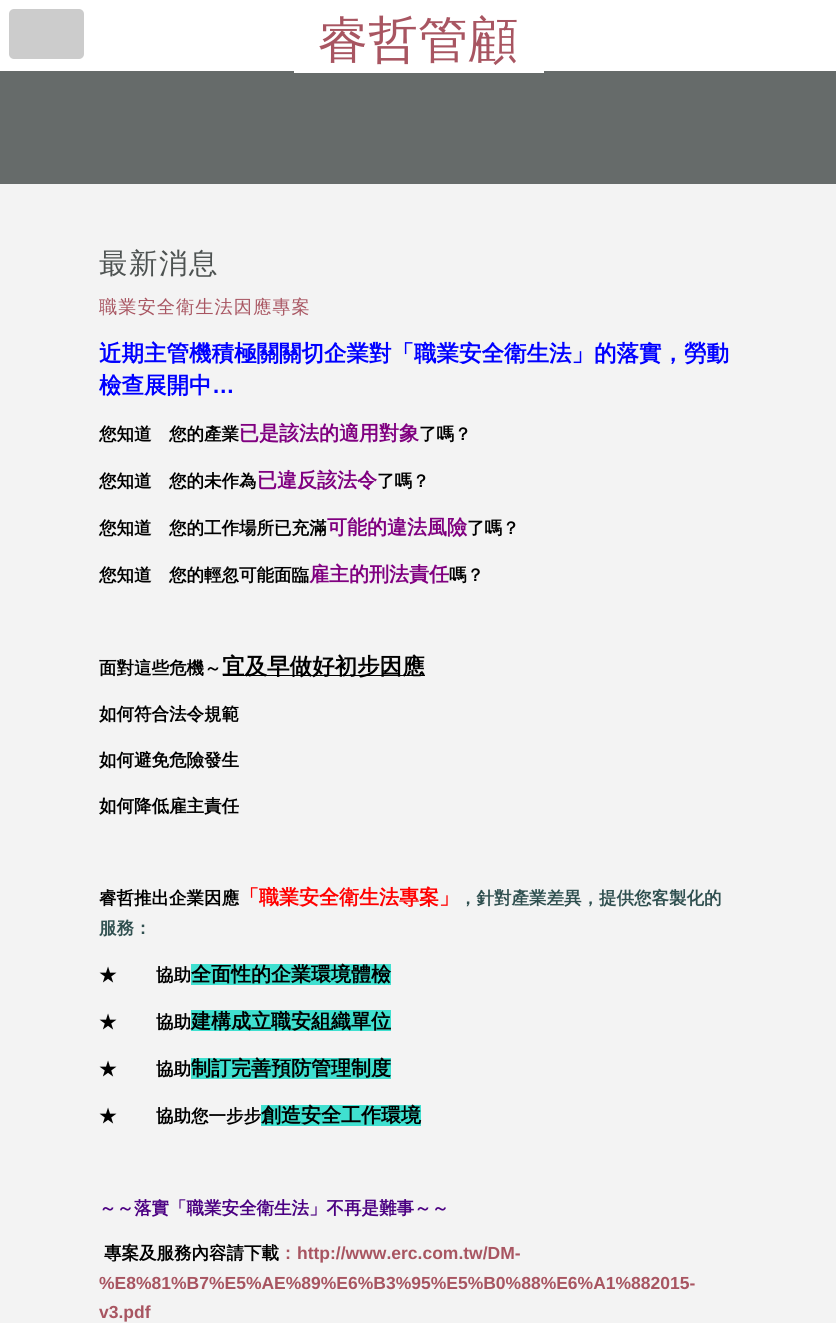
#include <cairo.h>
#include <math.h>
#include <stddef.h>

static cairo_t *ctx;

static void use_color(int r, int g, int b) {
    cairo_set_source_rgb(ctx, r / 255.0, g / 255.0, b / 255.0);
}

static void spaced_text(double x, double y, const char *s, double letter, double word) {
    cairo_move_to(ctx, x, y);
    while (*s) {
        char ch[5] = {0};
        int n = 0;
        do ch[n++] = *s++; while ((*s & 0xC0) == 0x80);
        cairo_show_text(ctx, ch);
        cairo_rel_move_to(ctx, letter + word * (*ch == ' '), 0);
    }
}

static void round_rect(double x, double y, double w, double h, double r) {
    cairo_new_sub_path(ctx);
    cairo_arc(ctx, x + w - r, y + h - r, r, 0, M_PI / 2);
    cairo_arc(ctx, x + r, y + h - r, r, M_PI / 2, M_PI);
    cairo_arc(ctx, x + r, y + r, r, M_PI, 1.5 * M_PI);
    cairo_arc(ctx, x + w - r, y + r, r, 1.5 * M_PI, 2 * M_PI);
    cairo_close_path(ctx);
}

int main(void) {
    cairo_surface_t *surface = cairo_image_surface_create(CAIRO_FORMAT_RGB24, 836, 1323);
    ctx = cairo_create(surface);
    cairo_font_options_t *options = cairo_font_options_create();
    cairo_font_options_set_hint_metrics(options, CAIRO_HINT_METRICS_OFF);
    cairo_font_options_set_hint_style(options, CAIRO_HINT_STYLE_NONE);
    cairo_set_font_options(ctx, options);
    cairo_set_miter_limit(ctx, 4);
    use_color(102, 107, 106);
    cairo_paint(ctx);
    use_color(255, 255, 255);
    cairo_rectangle(ctx, 0, 0, 836, 71);
    cairo_fill(ctx);
    use_color(204, 204, 204);
    round_rect(9, 9, 75, 50, 5);
    cairo_fill(ctx);
    cairo_select_font_face(ctx, "WenQuanYi Zen Hei Medium", CAIRO_FONT_SLANT_NORMAL, CAIRO_FONT_WEIGHT_NORMAL);
    cairo_set_font_size(ctx, 50);
    use_color(168, 85, 97);
    cairo_move_to(ctx, 318, 57);
    cairo_show_text(ctx, "睿哲管顧");
    use_color(255, 255, 255);
    cairo_rectangle(ctx, 294, 71, 250, 2);
    cairo_fill(ctx);
    use_color(243, 243, 243);
    cairo_rectangle(ctx, 0, 184, 836, 1139);
    cairo_fill(ctx);
    cairo_set_font_size(ctx, 28.5);
    use_color(77, 82, 81);
    spaced_text(99, 273, "最新消息", 1.5, 0);
    cairo_set_font_size(ctx, 18.25);
    use_color(168, 85, 97);
    spaced_text(99, 313, "職業安全衛生法因應專案", 1, 0);
    cairo_select_font_face(ctx, "WenQuanYi Zen Hei", CAIRO_FONT_SLANT_NORMAL, CAIRO_FONT_WEIGHT_BOLD);
    cairo_set_font_size(ctx, 22.5);
    use_color(0, 0, 255);
    cairo_move_to(ctx, 99, 361);
    cairo_show_text(ctx, "近期主管機積極關關切企業對「職業安全衛生法」的落實，勞動");
    cairo_move_to(ctx, 99, 393);
    cairo_show_text(ctx, "檢查展開中");
    cairo_select_font_face(ctx, "Liberation Sans", CAIRO_FONT_SLANT_NORMAL, CAIRO_FONT_WEIGHT_BOLD);
    cairo_move_to(ctx, 212, 393);
    cairo_show_text(ctx, "…");
    cairo_select_font_face(ctx, "WenQuanYi Zen Hei", CAIRO_FONT_SLANT_NORMAL, CAIRO_FONT_WEIGHT_BOLD);
    cairo_set_font_size(ctx, 17.5);
    use_color(0, 0, 0);
    cairo_move_to(ctx, 99, 440);
    cairo_show_text(ctx, "您知道　您的產業");
    cairo_set_font_size(ctx, 20);
    use_color(128, 0, 128);
    cairo_move_to(ctx, 239, 440);
    cairo_show_text(ctx, "已是該法的適用對象");
    cairo_set_font_size(ctx, 17.5);
    use_color(0, 0, 0);
    cairo_move_to(ctx, 419, 440);
    cairo_show_text(ctx, "了嗎？");
    cairo_move_to(ctx, 99, 487);
    cairo_show_text(ctx, "您知道　您的未作為");
    cairo_set_font_size(ctx, 20);
    use_color(128, 0, 128);
    cairo_move_to(ctx, 257, 487);
    cairo_show_text(ctx, "已違反該法令");
    cairo_set_font_size(ctx, 17.5);
    use_color(0, 0, 0);
    cairo_move_to(ctx, 377, 487);
    cairo_show_text(ctx, "了嗎？");
    cairo_move_to(ctx, 99, 534);
    cairo_show_text(ctx, "您知道　您的工作場所已充滿");
    cairo_set_font_size(ctx, 20);
    use_color(128, 0, 128);
    cairo_move_to(ctx, 327, 534);
    cairo_show_text(ctx, "可能的違法風險");
    cairo_set_font_size(ctx, 17.5);
    use_color(0, 0, 0);
    cairo_move_to(ctx, 467, 534);
    cairo_show_text(ctx, "了嗎？");
    cairo_move_to(ctx, 99, 581);
    cairo_show_text(ctx, "您知道　您的輕忽可能面臨");
    cairo_set_font_size(ctx, 20);
    use_color(128, 0, 128);
    cairo_move_to(ctx, 309, 581);
    cairo_show_text(ctx, "雇主的刑法責任");
    cairo_set_font_size(ctx, 17.5);
    use_color(0, 0, 0);
    cairo_move_to(ctx, 449, 581);
    cairo_show_text(ctx, "嗎？");
    cairo_move_to(ctx, 99, 674);
    cairo_show_text(ctx, "面對這些危機～");
    cairo_rectangle(ctx, 223, 675, 202, 1);
    cairo_fill(ctx);
    cairo_set_font_size(ctx, 22.5);
    cairo_move_to(ctx, 222, 674);
    cairo_show_text(ctx, "宜及早做好初步因應");
    cairo_set_font_size(ctx, 17.5);
    cairo_move_to(ctx, 99, 720);
    cairo_show_text(ctx, "如何符合法令規範");
    cairo_move_to(ctx, 99, 766);
    cairo_show_text(ctx, "如何避免危險發生");
    cairo_move_to(ctx, 99, 812);
    cairo_show_text(ctx, "如何降低雇主責任");
    cairo_move_to(ctx, 99, 904);
    cairo_show_text(ctx, "睿哲推出企業因應");
    cairo_set_font_size(ctx, 20);
    use_color(255, 0, 0);
    cairo_move_to(ctx, 239, 904);
    cairo_show_text(ctx, "「職業安全衛生法專案」");
    cairo_set_font_size(ctx, 17.5);
    use_color(47, 79, 79);
    cairo_move_to(ctx, 459, 904);
    cairo_show_text(ctx, "，針對產業差異，提供您客製化的");
    cairo_move_to(ctx, 99, 934);
    cairo_show_text(ctx, "服務：");
    use_color(0, 0, 0);
    cairo_move_to(ctx, 99, 981);
    cairo_show_text(ctx, "★");
    cairo_move_to(ctx, 156, 981);
    cairo_show_text(ctx, "協助");
    use_color(64, 224, 208);
    cairo_rectangle(ctx, 191, 964, 200, 21);
    cairo_fill(ctx);
    cairo_set_font_size(ctx, 20);
    use_color(0, 0, 0);
    cairo_move_to(ctx, 191, 981);
    cairo_show_text(ctx, "全面性的企業環境體檢");
    cairo_set_font_size(ctx, 17.5);
    cairo_move_to(ctx, 99, 1028);
    cairo_show_text(ctx, "★");
    cairo_move_to(ctx, 156, 1028);
    cairo_show_text(ctx, "協助");
    use_color(64, 224, 208);
    cairo_rectangle(ctx, 191, 1010, 200, 21);
    cairo_fill(ctx);
    cairo_set_font_size(ctx, 20);
    use_color(0, 0, 0);
    cairo_move_to(ctx, 191, 1028);
    cairo_show_text(ctx, "建構成立職安組織單位");
    cairo_set_font_size(ctx, 17.5);
    cairo_move_to(ctx, 99, 1075);
    cairo_show_text(ctx, "★");
    cairo_move_to(ctx, 156, 1075);
    cairo_show_text(ctx, "協助");
    use_color(64, 224, 208);
    cairo_rectangle(ctx, 191, 1058, 200, 21);
    cairo_fill(ctx);
    cairo_set_font_size(ctx, 20);
    use_color(0, 0, 0);
    cairo_move_to(ctx, 191, 1075);
    cairo_show_text(ctx, "制訂完善預防管理制度");
    cairo_set_font_size(ctx, 17.5);
    cairo_move_to(ctx, 99, 1122);
    cairo_show_text(ctx, "★");
    cairo_move_to(ctx, 156, 1122);
    cairo_show_text(ctx, "協助您一步步");
    use_color(64, 224, 208);
    cairo_rectangle(ctx, 261, 1105, 160, 21);
    cairo_fill(ctx);
    cairo_set_font_size(ctx, 20);
    use_color(0, 0, 0);
    cairo_move_to(ctx, 261, 1122);
    cairo_show_text(ctx, "創造安全工作環境");
    cairo_set_font_size(ctx, 17.5);
    use_color(75, 0, 130);
    cairo_move_to(ctx, 99, 1214);
    cairo_show_text(ctx, "～～落實「職業安全衛生法」不再是難事～～");
    use_color(0, 0, 0);
    cairo_move_to(ctx, 104, 1259);
    cairo_show_text(ctx, "專案及服務內容請下載");
    use_color(168, 85, 97);
    cairo_move_to(ctx, 279, 1259);
    cairo_show_text(ctx, "：");
    cairo_select_font_face(ctx, "Liberation Sans", CAIRO_FONT_SLANT_NORMAL, CAIRO_FONT_WEIGHT_BOLD);
    cairo_move_to(ctx, 297, 1259);
    cairo_show_text(ctx, "http://www.erc.com.tw/DM-");
    cairo_move_to(ctx, 99, 1289);
    cairo_show_text(ctx, "%E8%81%B7%E5%AE%89%E6%B3%95%E5%B0%88%E6%A1%882015-");
    cairo_move_to(ctx, 99, 1318);
    cairo_show_text(ctx, "v3.pdf");
    cairo_surface_write_to_png(surface, "result.png");
    cairo_font_options_destroy(options);
    cairo_destroy(ctx);
    cairo_surface_destroy(surface);
    return 0;
}
